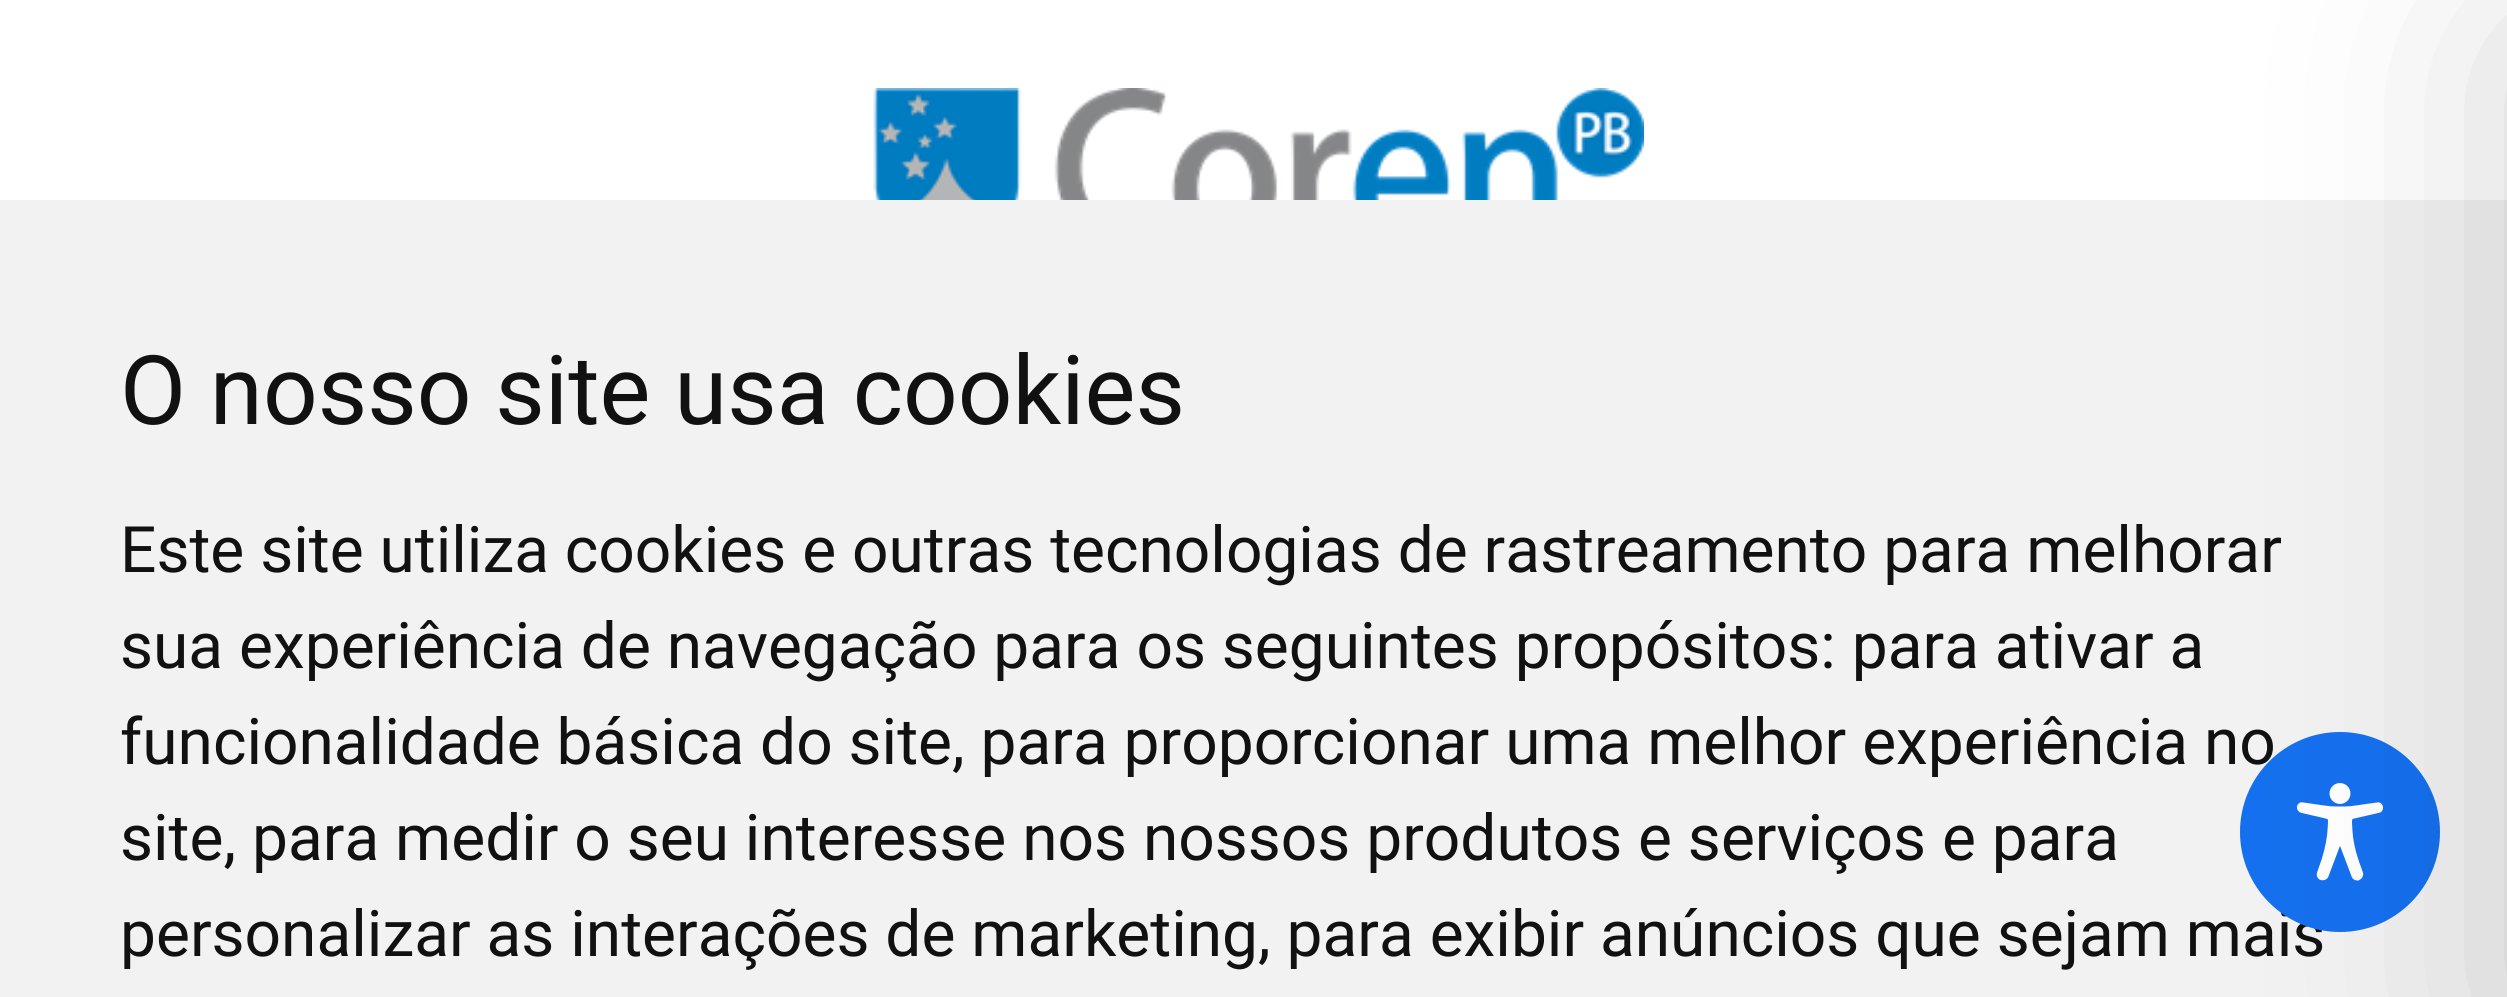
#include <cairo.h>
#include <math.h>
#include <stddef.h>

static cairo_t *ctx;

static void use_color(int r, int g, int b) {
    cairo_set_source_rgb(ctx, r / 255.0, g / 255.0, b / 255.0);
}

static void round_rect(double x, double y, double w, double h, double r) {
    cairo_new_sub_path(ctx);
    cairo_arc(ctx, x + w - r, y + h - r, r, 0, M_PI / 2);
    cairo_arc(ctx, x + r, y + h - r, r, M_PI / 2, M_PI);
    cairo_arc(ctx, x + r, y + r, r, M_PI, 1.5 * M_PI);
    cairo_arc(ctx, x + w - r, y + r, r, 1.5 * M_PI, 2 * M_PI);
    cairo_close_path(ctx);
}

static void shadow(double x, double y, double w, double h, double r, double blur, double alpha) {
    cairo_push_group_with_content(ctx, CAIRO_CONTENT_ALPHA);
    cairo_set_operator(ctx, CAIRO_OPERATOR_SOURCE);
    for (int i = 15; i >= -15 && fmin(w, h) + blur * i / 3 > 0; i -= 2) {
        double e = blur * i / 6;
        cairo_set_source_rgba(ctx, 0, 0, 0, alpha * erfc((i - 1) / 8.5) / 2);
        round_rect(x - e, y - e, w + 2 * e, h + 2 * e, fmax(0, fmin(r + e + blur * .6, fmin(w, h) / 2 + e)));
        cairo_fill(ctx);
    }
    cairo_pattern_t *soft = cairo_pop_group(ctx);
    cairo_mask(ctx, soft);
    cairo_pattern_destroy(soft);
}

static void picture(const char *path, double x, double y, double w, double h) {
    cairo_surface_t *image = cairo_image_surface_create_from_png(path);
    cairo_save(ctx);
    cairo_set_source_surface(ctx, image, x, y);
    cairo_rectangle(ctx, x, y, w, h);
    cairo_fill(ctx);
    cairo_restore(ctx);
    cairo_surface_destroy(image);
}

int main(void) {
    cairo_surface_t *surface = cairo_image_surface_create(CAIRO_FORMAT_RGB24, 2507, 997);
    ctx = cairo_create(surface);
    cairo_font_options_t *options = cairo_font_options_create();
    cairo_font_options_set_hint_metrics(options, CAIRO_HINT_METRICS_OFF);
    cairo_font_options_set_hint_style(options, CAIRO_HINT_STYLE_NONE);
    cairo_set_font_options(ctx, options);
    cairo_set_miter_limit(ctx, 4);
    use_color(255, 255, 255);
    cairo_paint(ctx);
    picture("img1.png", 873, 88, 771, 112);
    use_color(242, 242, 242);
    cairo_rectangle(ctx, 0, 200, 2507, 797);
    cairo_fill(ctx);
    cairo_select_font_face(ctx, "Roboto", CAIRO_FONT_SLANT_NORMAL, CAIRO_FONT_WEIGHT_NORMAL);
    cairo_set_font_size(ctx, 64);
    use_color(17, 17, 17);
    cairo_move_to(ctx, 120, 764);
    cairo_show_text(ctx, "funcionalidade básica do site, para proporcionar uma melhor experiência no");
    cairo_move_to(ctx, 120, 956);
    cairo_show_text(ctx, "personalizar as interações de marketing, para exibir anúncios que sejam mais");
    use_color(21, 112, 239);
    cairo_new_path(ctx);
    cairo_arc(ctx, 2340, 832, 100, 0, 2 * M_PI);
    cairo_fill(ctx);
    picture("img2.png", 2297, 783, 86, 98);
    use_color(0, 0, 0);
    shadow(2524, 40, 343, 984, 0, 120, 0.2);
    cairo_set_font_size(ctx, 96);
    use_color(17, 17, 17);
    cairo_move_to(ctx, 120, 424);
    cairo_show_text(ctx, "O nosso site usa cookies");
    cairo_set_font_size(ctx, 64);
    cairo_move_to(ctx, 120, 572);
    cairo_show_text(ctx, "Este site utiliza cookies e outras tecnologias de rastreamento para melhorar");
    cairo_move_to(ctx, 120, 668);
    cairo_show_text(ctx, "sua experiência de navegação para os seguintes propósitos: para ativar a");
    cairo_move_to(ctx, 120, 860);
    cairo_show_text(ctx, "site, para medir o seu interesse nos nossos produtos e serviços e para");
    cairo_surface_write_to_png(surface, "result.png");
    cairo_font_options_destroy(options);
    cairo_destroy(ctx);
    cairo_surface_destroy(surface);
    return 0;
}
